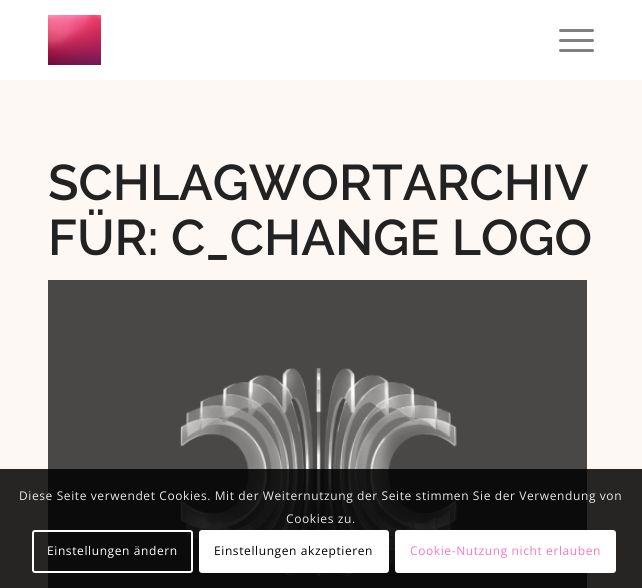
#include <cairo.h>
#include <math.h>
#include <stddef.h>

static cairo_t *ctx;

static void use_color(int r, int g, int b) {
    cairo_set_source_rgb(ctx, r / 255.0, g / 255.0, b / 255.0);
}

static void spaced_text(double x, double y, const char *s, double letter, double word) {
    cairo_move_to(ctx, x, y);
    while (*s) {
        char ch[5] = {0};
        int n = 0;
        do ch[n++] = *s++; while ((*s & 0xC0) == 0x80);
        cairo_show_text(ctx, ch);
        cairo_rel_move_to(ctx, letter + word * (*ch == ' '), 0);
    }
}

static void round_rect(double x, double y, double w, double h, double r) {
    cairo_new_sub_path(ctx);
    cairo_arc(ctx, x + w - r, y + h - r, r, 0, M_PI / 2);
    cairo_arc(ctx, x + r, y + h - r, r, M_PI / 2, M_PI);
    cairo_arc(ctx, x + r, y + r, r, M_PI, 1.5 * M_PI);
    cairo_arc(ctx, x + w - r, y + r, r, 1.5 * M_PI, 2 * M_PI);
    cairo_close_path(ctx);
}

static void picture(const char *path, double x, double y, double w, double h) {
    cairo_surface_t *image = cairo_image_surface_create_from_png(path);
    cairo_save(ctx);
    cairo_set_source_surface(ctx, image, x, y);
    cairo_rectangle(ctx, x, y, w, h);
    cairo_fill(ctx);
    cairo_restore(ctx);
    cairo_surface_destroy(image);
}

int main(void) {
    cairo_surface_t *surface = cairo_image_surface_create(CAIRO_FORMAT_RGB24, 642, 588);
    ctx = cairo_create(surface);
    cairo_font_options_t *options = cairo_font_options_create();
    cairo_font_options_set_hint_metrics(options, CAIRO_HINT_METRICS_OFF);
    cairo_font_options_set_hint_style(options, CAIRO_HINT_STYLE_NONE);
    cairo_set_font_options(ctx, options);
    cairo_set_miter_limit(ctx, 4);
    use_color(253, 248, 244);
    cairo_paint(ctx);
    use_color(255, 255, 255);
    cairo_rectangle(ctx, 0, 0, 642, 80);
    cairo_fill(ctx);
    picture("img1.png", 48, 15, 53, 50);
    use_color(128, 128, 128);
    round_rect(559, 39, 35, 3, 1.5);
    cairo_fill(ctx);
    round_rect(559, 29, 35, 3, 1.5);
    cairo_fill(ctx);
    round_rect(559, 49, 35, 3, 1.5);
    cairo_fill(ctx);
    cairo_select_font_face(ctx, "Raleway SemiBold", CAIRO_FONT_SLANT_NORMAL, CAIRO_FONT_WEIGHT_NORMAL);
    cairo_set_font_size(ctx, 50);
    use_color(34, 34, 34);
    cairo_move_to(ctx, 48, 200);
    cairo_show_text(ctx, "SCHLAGWORTARCHIV");
    cairo_move_to(ctx, 48, 255);
    cairo_show_text(ctx, "FÜR: C_CHANGE LOGO");
    picture("img2.png", 48, 280, 539, 308);
    cairo_set_source_rgba(ctx, 0, 0, 0, 0.85);
    cairo_rectangle(ctx, 0, 469, 642, 119);
    cairo_fill(ctx);
    cairo_select_font_face(ctx, "Open Sans", CAIRO_FONT_SLANT_NORMAL, CAIRO_FONT_WEIGHT_NORMAL);
    cairo_set_font_size(ctx, 12);
    use_color(231, 231, 231);
    spaced_text(19, 500, "Diese Seite verwendet Cookies. Mit der Weiternutzung der Seite stimmen Sie der Verwendung von", 0.6, 0);
    spaced_text(286, 523, "Cookies zu.", 0.6, 0);
    round_rect(33, 531, 159, 41, 2);
    use_color(255, 255, 255);
    cairo_stroke(ctx);
    spaced_text(47, 555, "Einstellungen ändern", 0.6, 0);
    round_rect(199, 530, 190, 43, 3);
    cairo_fill(ctx);
    use_color(0, 0, 0);
    spaced_text(214, 555, "Einstellungen akzeptieren", 0.6, 0);
    use_color(255, 255, 255);
    round_rect(396, 531, 219, 41, 2);
    cairo_fill_preserve(ctx);
    cairo_stroke(ctx);
    use_color(255, 117, 181);
    spaced_text(410, 555, "Cookie-Nutzung nicht erlauben", 0.6, 0);
    cairo_surface_write_to_png(surface, "result.png");
    cairo_font_options_destroy(options);
    cairo_destroy(ctx);
    cairo_surface_destroy(surface);
    return 0;
}
